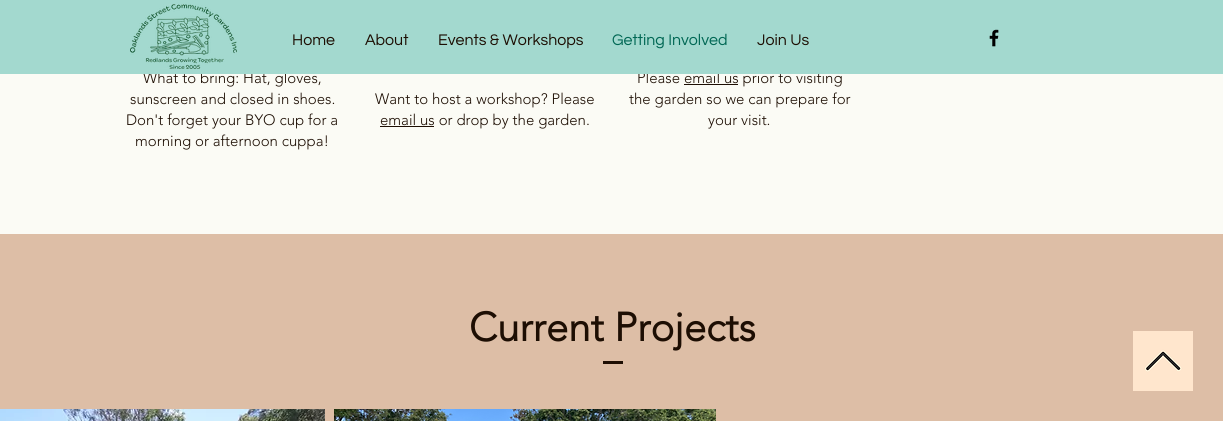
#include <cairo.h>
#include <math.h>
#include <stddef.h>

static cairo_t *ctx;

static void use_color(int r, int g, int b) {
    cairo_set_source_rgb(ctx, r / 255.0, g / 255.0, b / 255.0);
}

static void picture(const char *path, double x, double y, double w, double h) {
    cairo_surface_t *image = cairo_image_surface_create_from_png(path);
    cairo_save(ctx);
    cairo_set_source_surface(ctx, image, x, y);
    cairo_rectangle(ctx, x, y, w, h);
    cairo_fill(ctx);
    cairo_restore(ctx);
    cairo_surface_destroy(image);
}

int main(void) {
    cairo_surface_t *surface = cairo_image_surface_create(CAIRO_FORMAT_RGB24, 1223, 421);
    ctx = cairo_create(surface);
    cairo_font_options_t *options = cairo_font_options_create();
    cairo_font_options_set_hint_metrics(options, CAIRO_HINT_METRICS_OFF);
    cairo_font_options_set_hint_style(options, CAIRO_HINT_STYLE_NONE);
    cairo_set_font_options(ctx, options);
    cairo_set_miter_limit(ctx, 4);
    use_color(251, 251, 245);
    cairo_paint(ctx);
    cairo_select_font_face(ctx, "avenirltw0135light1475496 Light", CAIRO_FONT_SLANT_NORMAL, CAIRO_FONT_WEIGHT_NORMAL);
    cairo_set_font_size(ctx, 15);
    use_color(29, 14, 3);
    cairo_move_to(ctx, 143, 83);
    cairo_show_text(ctx, "What to bring: Hat, gloves,");
    cairo_move_to(ctx, 637, 83);
    cairo_show_text(ctx, "Please email us prior to visiting");
    use_color(163, 217, 207);
    cairo_rectangle(ctx, 0, 0, 1223, 74);
    cairo_fill(ctx);
    picture("img1.png", 130, 4, 107, 65);
    cairo_select_font_face(ctx, "Questrial", CAIRO_FONT_SLANT_NORMAL, CAIRO_FONT_WEIGHT_NORMAL);
    cairo_set_font_size(ctx, 16);
    use_color(29, 14, 3);
    cairo_move_to(ctx, 292, 45);
    cairo_show_text(ctx, "Home");
    cairo_move_to(ctx, 365, 45);
    cairo_show_text(ctx, "About");
    cairo_move_to(ctx, 438, 45);
    cairo_show_text(ctx, "Events & Workshops");
    use_color(1, 104, 85);
    cairo_move_to(ctx, 612, 45);
    cairo_show_text(ctx, "Getting Involved");
    use_color(29, 14, 3);
    cairo_move_to(ctx, 757, 45);
    cairo_show_text(ctx, "Join Us");
    picture("img2.png", 989, 29, 10, 18);
    cairo_select_font_face(ctx, "avenirltw0135light1475496 Light", CAIRO_FONT_SLANT_NORMAL, CAIRO_FONT_WEIGHT_NORMAL);
    cairo_set_font_size(ctx, 15);
    cairo_move_to(ctx, 130, 104);
    cairo_show_text(ctx, "sunscreen and closed in shoes.");
    cairo_move_to(ctx, 126, 125);
    cairo_show_text(ctx, "Don't forget your BYO cup for a");
    cairo_move_to(ctx, 135, 146);
    cairo_show_text(ctx, "morning or afternoon cuppa!");
    cairo_move_to(ctx, 375, 104);
    cairo_show_text(ctx, "Want to host a workshop? Please");
    cairo_rectangle(ctx, 380, 126, 54, 1);
    cairo_fill(ctx);
    cairo_move_to(ctx, 380, 125);
    cairo_show_text(ctx, "email us or drop by the garden.");
    cairo_rectangle(ctx, 684, 84, 54, 1);
    cairo_fill(ctx);
    cairo_move_to(ctx, 629, 104);
    cairo_show_text(ctx, "the garden so we can prepare for");
    cairo_move_to(ctx, 708, 125);
    cairo_show_text(ctx, "your visit.");
    use_color(221, 190, 166);
    cairo_rectangle(ctx, 0, 234, 1223, 187);
    cairo_fill(ctx);
    cairo_select_font_face(ctx, "avenirltw0135light1475496", CAIRO_FONT_SLANT_NORMAL, CAIRO_FONT_WEIGHT_BOLD);
    cairo_set_font_size(ctx, 40);
    use_color(29, 14, 3);
    cairo_move_to(ctx, 469, 341);
    cairo_show_text(ctx, "Current Projects");
    cairo_rectangle(ctx, 603, 361, 20, 3);
    cairo_fill(ctx);
    picture("img3.png", 0, 409, 325, 12);
    picture("img4.png", 334, 409, 382, 12);
    picture("img5.png", 1133, 331, 60, 60);
    cairo_surface_write_to_png(surface, "result.png");
    cairo_font_options_destroy(options);
    cairo_destroy(ctx);
    cairo_surface_destroy(surface);
    return 0;
}
